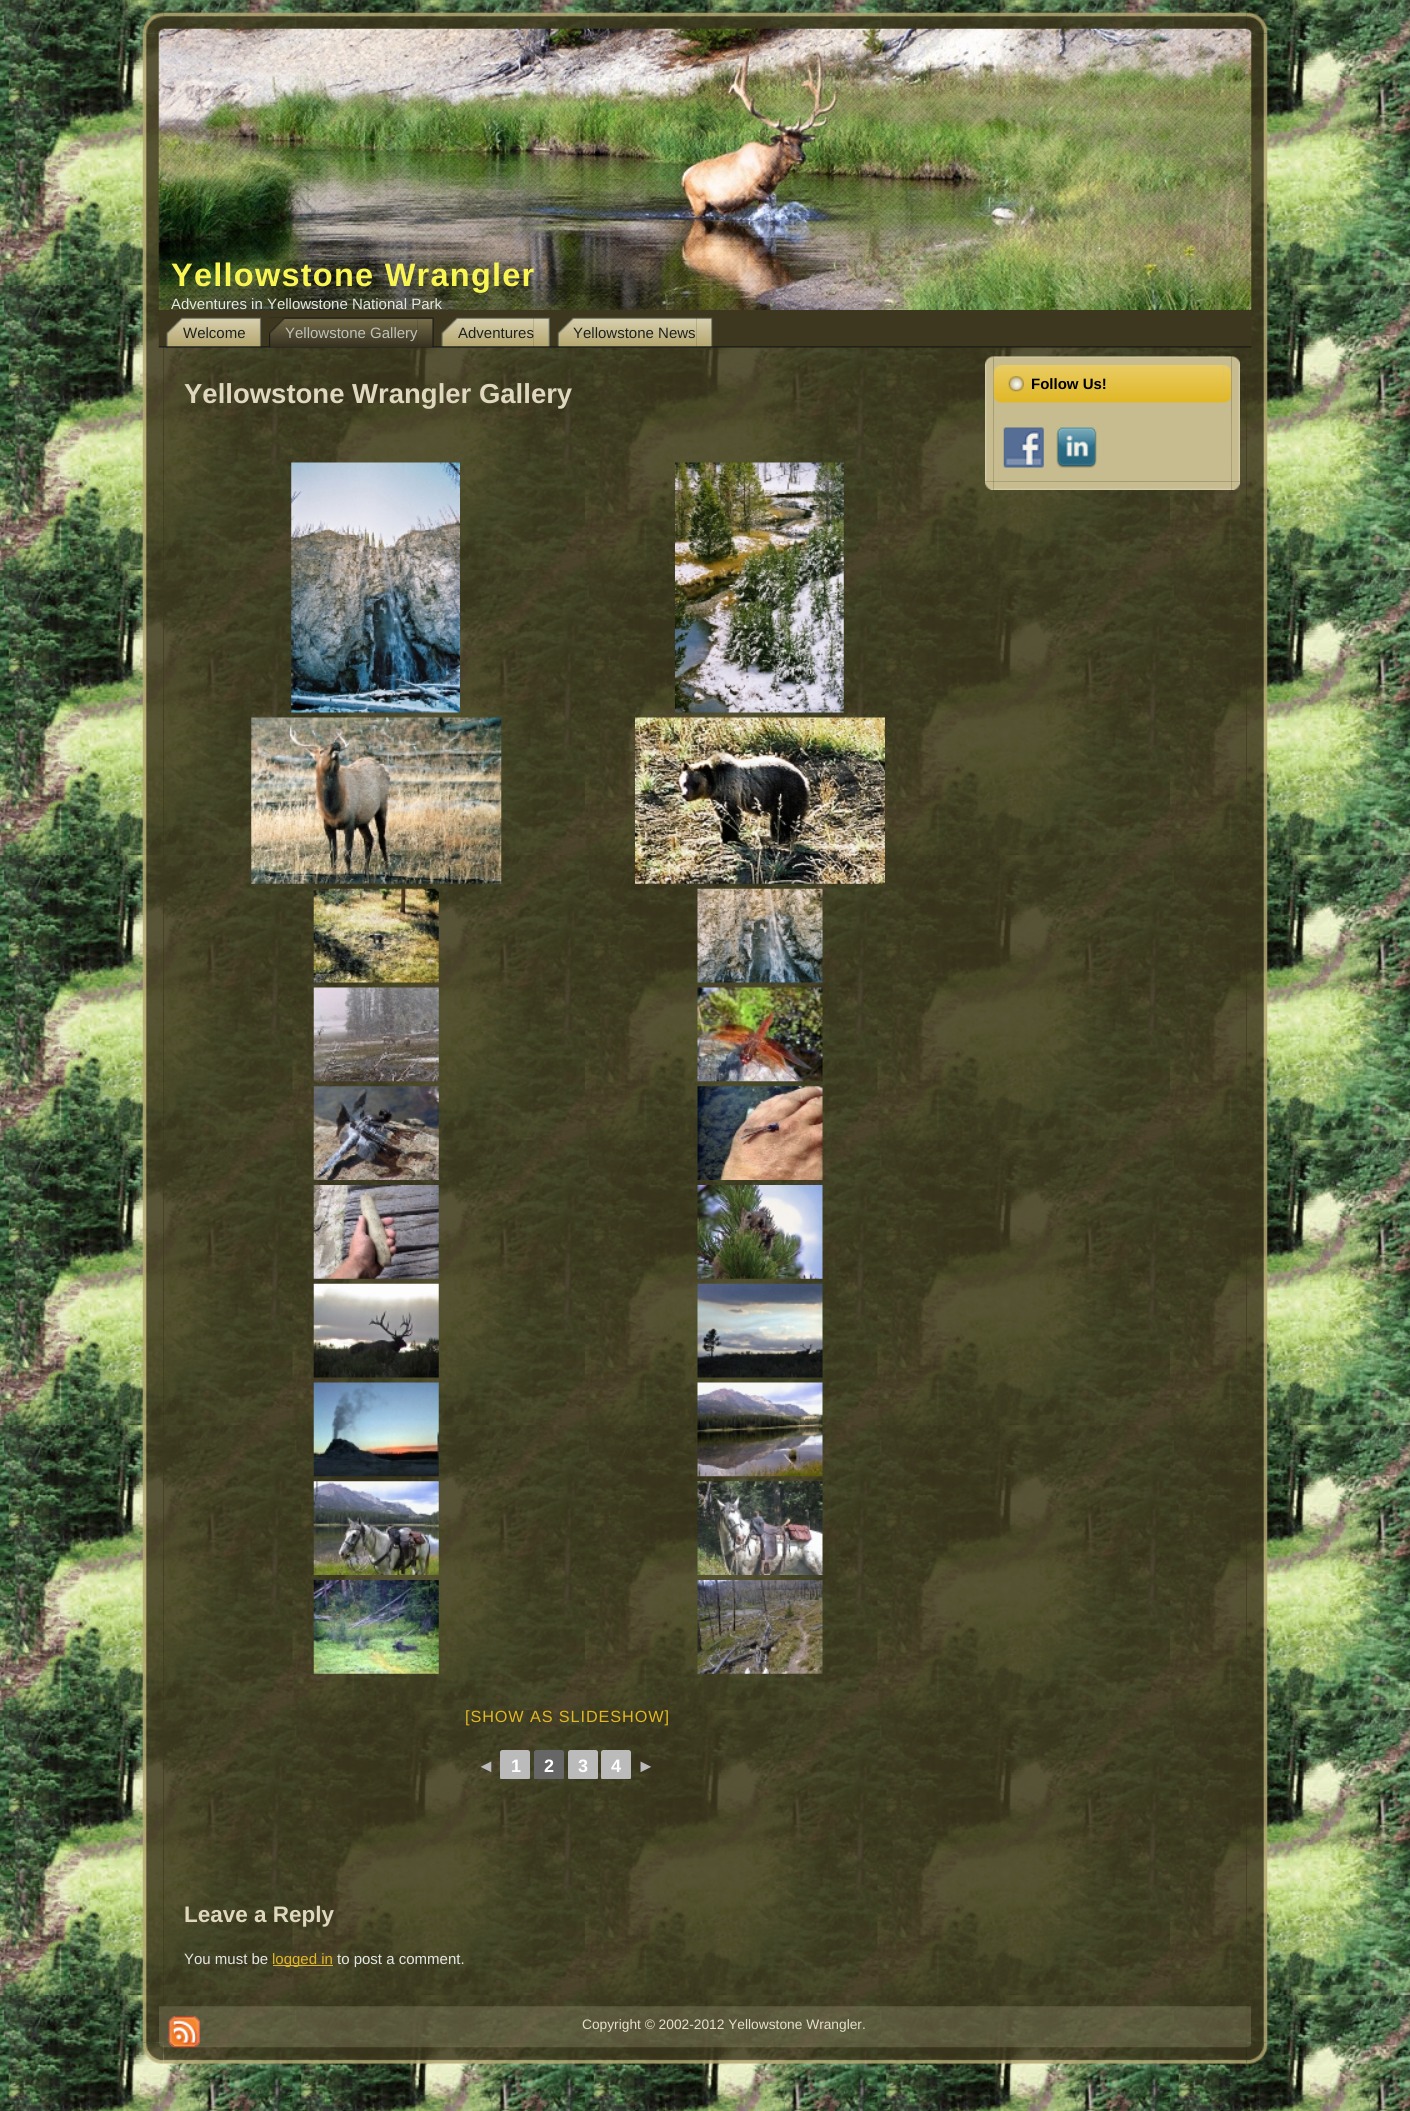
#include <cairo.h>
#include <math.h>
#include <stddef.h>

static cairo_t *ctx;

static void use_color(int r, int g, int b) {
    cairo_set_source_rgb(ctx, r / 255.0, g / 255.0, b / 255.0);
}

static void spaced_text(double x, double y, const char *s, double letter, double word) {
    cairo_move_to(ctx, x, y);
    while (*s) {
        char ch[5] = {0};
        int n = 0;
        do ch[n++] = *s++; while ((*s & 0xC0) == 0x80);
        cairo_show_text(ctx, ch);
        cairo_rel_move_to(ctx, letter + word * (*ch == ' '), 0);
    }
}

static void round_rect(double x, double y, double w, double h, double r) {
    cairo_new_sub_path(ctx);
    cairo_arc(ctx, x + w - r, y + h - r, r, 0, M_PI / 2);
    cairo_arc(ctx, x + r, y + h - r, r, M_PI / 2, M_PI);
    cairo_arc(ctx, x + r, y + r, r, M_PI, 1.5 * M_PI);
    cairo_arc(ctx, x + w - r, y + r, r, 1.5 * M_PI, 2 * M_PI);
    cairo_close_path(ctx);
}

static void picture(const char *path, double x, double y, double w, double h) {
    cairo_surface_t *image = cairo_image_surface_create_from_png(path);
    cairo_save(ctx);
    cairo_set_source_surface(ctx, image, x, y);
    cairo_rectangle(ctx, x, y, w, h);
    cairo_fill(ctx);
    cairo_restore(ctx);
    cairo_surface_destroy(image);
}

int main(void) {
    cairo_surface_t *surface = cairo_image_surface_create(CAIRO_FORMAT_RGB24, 1410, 2111);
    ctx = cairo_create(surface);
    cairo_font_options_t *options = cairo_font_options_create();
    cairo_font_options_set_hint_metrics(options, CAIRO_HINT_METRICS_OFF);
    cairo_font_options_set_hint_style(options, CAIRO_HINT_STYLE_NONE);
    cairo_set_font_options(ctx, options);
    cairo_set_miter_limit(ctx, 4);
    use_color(255, 255, 255);
    cairo_paint(ctx);
    picture("img1.png", 0, 0, 1410, 2111);
    picture("img2.png", 142, 12, 22, 22);
    picture("img3.png", 164, 12, 1082, 17);
    picture("img4.png", 1246, 12, 22, 22);
    picture("img53.png", 142, 2042, 22, 22);
    picture("img5.png", 142, 34, 22, 2009);
    picture("img55.png", 1246, 2042, 22, 22);
    picture("img52.png", 1246, 34, 22, 2009);
    picture("img6.png", 158, 28, 1094, 282);
    picture("img7.png", 163, 33, 1084, 272);
    cairo_select_font_face(ctx, "Liberation Sans", CAIRO_FONT_SLANT_NORMAL, CAIRO_FONT_WEIGHT_BOLD);
    cairo_set_font_size(ctx, 32.5);
    use_color(249, 246, 83);
    spaced_text(171, 286, "Yellowstone Wrangler", 1.25, 0);
    cairo_select_font_face(ctx, "Liberation Sans", CAIRO_FONT_SLANT_NORMAL, CAIRO_FONT_WEIGHT_NORMAL);
    cairo_set_font_size(ctx, 15);
    use_color(229, 231, 228);
    cairo_move_to(ctx, 171, 309);
    cairo_show_text(ctx, "Adventures in Yellowstone National Park");
    picture("img54.png", 164, 2042, 1082, 22);
    cairo_set_source_rgba(ctx, 0.239, 0.216, 0.118, 0.85);
    cairo_rectangle(ctx, 163, 347, 1084, 1696);
    cairo_fill(ctx);
    picture("img8.png", 158, 310, 1094, 38);
    picture("img9.png", 166, 317, 79, 31);
    picture("img10.png", 245, 317, 17, 31);
    use_color(30, 32, 29);
    cairo_move_to(ctx, 183, 338);
    cairo_show_text(ctx, "Welcome");
    picture("img11.png", 269, 317, 149, 31);
    picture("img12.png", 417, 317, 17, 31);
    use_color(189, 195, 187);
    cairo_move_to(ctx, 285, 338);
    cairo_show_text(ctx, "Yellowstone Gallery");
    picture("img13.png", 441, 317, 93, 31);
    picture("img14.png", 533, 317, 17, 31);
    use_color(30, 32, 29);
    cairo_move_to(ctx, 458, 338);
    cairo_show_text(ctx, "Adventures");
    picture("img15.png", 557, 317, 140, 31);
    picture("img16.png", 696, 317, 17, 31);
    cairo_move_to(ctx, 573, 338);
    cairo_show_text(ctx, "Yellowstone News");
    cairo_select_font_face(ctx, "Liberation Sans", CAIRO_FONT_SLANT_NORMAL, CAIRO_FONT_WEIGHT_BOLD);
    cairo_set_font_size(ctx, 27.5);
    use_color(223, 216, 191);
    cairo_move_to(ctx, 184, 403);
    cairo_show_text(ctx, "Yellowstone Wrangler Gallery");
    picture("img17.png", 291, 462, 169, 251);
    picture("img18.png", 675, 462, 169, 251);
    picture("img19.png", 251, 717, 251, 167);
    picture("img20.png", 635, 717, 250, 167);
    picture("img21.png", 313, 888, 126, 95);
    picture("img22.png", 697, 888, 126, 95);
    picture("img23.png", 313, 987, 126, 95);
    picture("img24.png", 697, 987, 126, 95);
    picture("img25.png", 313, 1086, 126, 94);
    picture("img26.png", 697, 1086, 126, 94);
    picture("img27.png", 313, 1185, 126, 94);
    picture("img28.png", 697, 1185, 126, 94);
    picture("img29.png", 313, 1283, 126, 95);
    picture("img30.png", 697, 1283, 126, 95);
    picture("img31.png", 313, 1382, 126, 95);
    picture("img32.png", 697, 1382, 126, 95);
    picture("img33.png", 313, 1481, 126, 94);
    picture("img34.png", 697, 1481, 126, 94);
    picture("img35.png", 313, 1580, 126, 94);
    picture("img36.png", 697, 1580, 126, 94);
    cairo_select_font_face(ctx, "Liberation Sans", CAIRO_FONT_SLANT_NORMAL, CAIRO_FONT_WEIGHT_NORMAL);
    cairo_set_font_size(ctx, 16.25);
    use_color(224, 183, 36);
    spaced_text(465, 1722, "[SHOW AS SLIDESHOW]", 0.9, 0);
    cairo_select_font_face(ctx, "Liberation Sans", CAIRO_FONT_SLANT_NORMAL, CAIRO_FONT_WEIGHT_BOLD);
    cairo_set_font_size(ctx, 18);
    use_color(187, 187, 187);
    cairo_move_to(ctx, 477, 1772);
    cairo_show_text(ctx, "◄");
    cairo_save(ctx);
    cairo_rectangle(ctx, 184, 460, 767, 1319);
    cairo_clip(ctx);
    round_rect(500, 1750, 30, 30, 2.5);
    cairo_fill(ctx);
    cairo_restore(ctx);
    use_color(255, 255, 255);
    cairo_move_to(ctx, 511, 1772);
    cairo_show_text(ctx, "1");
    cairo_save(ctx);
    cairo_rectangle(ctx, 184, 460, 767, 1319);
    cairo_clip(ctx);
    use_color(102, 102, 102);
    round_rect(534, 1750, 30, 30, 2.5);
    cairo_fill(ctx);
    cairo_restore(ctx);
    cairo_move_to(ctx, 544, 1772);
    cairo_show_text(ctx, "2");
    cairo_save(ctx);
    cairo_rectangle(ctx, 184, 460, 767, 1319);
    cairo_clip(ctx);
    use_color(187, 187, 187);
    round_rect(568, 1750, 30, 30, 2.5);
    cairo_fill(ctx);
    cairo_restore(ctx);
    cairo_move_to(ctx, 578, 1772);
    cairo_show_text(ctx, "3");
    cairo_save(ctx);
    cairo_rectangle(ctx, 184, 460, 767, 1319);
    cairo_clip(ctx);
    use_color(187, 187, 187);
    round_rect(601, 1750, 30, 30, 2.5);
    cairo_fill(ctx);
    cairo_restore(ctx);
    cairo_move_to(ctx, 611, 1772);
    cairo_show_text(ctx, "4");
    use_color(187, 187, 187);
    cairo_move_to(ctx, 637, 1772);
    cairo_show_text(ctx, "►");
    cairo_set_font_size(ctx, 22.5);
    use_color(223, 216, 191);
    cairo_move_to(ctx, 184, 1922);
    cairo_show_text(ctx, "Leave a Reply");
    cairo_select_font_face(ctx, "Liberation Sans", CAIRO_FONT_SLANT_NORMAL, CAIRO_FONT_WEIGHT_NORMAL);
    cairo_set_font_size(ctx, 15);
    use_color(229, 231, 228);
    cairo_move_to(ctx, 184, 1964);
    cairo_show_text(ctx, "You must be");
    use_color(224, 183, 36);
    cairo_rectangle(ctx, 273, 1965, 60, 1);
    cairo_fill(ctx);
    cairo_move_to(ctx, 272, 1964);
    cairo_show_text(ctx, "logged in");
    use_color(229, 231, 228);
    cairo_move_to(ctx, 337, 1964);
    cairo_show_text(ctx, "to post a comment.");
    picture("img37.png", 985, 356, 9, 9);
    picture("img38.png", 994, 356, 237, 9);
    picture("img39.png", 1231, 356, 9, 9);
    picture("img40.png", 985, 365, 9, 116);
    use_color(199, 188, 143);
    cairo_rectangle(ctx, 994, 365, 237, 116);
    cairo_fill(ctx);
    picture("img41.png", 1231, 365, 9, 116);
    picture("img42.png", 993, 365, 231, 38);
    picture("img43.png", 1223, 365, 9, 38);
    picture("img44.png", 1008, 376, 16, 16);
    cairo_select_font_face(ctx, "Liberation Sans", CAIRO_FONT_SLANT_NORMAL, CAIRO_FONT_WEIGHT_BOLD);
    use_color(0, 0, 0);
    cairo_move_to(ctx, 1031, 389);
    cairo_show_text(ctx, "Follow Us!");
    picture("img45.png", 1003, 427, 41, 41);
    picture("img46.png", 1056, 427, 41, 41);
    picture("img47.png", 985, 481, 9, 9);
    picture("img48.png", 994, 481, 237, 9);
    picture("img49.png", 1231, 481, 9, 9);
    picture("img50.png", 159, 2006, 1092, 42);
    picture("img51.png", 168, 2016, 32, 32);
    cairo_select_font_face(ctx, "Liberation Sans", CAIRO_FONT_SLANT_NORMAL, CAIRO_FONT_WEIGHT_NORMAL);
    cairo_set_font_size(ctx, 13.75);
    use_color(229, 224, 204);
    cairo_move_to(ctx, 582, 2029);
    cairo_show_text(ctx, "Copyright © 2002-2012 Yellowstone Wrangler.");
    cairo_surface_write_to_png(surface, "result.png");
    cairo_font_options_destroy(options);
    cairo_destroy(ctx);
    cairo_surface_destroy(surface);
    return 0;
}
